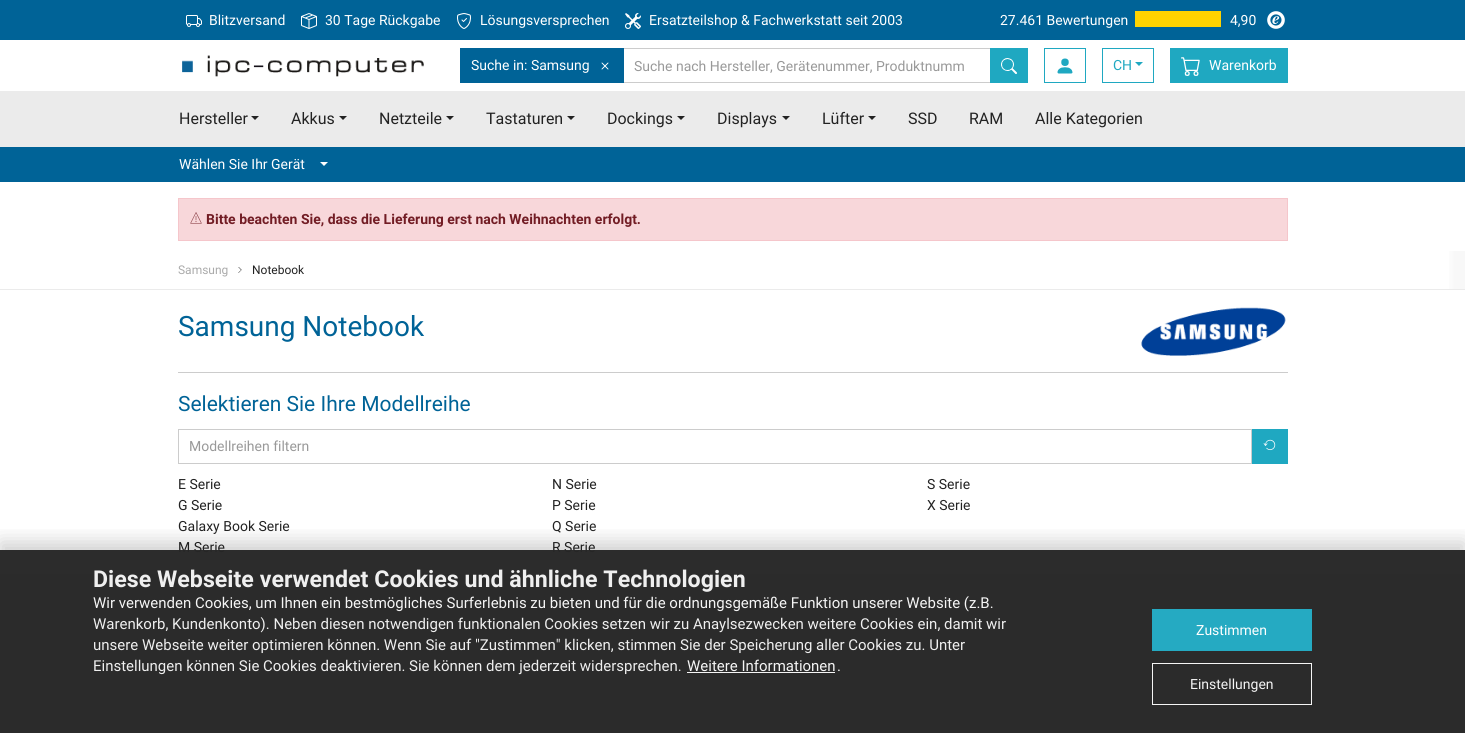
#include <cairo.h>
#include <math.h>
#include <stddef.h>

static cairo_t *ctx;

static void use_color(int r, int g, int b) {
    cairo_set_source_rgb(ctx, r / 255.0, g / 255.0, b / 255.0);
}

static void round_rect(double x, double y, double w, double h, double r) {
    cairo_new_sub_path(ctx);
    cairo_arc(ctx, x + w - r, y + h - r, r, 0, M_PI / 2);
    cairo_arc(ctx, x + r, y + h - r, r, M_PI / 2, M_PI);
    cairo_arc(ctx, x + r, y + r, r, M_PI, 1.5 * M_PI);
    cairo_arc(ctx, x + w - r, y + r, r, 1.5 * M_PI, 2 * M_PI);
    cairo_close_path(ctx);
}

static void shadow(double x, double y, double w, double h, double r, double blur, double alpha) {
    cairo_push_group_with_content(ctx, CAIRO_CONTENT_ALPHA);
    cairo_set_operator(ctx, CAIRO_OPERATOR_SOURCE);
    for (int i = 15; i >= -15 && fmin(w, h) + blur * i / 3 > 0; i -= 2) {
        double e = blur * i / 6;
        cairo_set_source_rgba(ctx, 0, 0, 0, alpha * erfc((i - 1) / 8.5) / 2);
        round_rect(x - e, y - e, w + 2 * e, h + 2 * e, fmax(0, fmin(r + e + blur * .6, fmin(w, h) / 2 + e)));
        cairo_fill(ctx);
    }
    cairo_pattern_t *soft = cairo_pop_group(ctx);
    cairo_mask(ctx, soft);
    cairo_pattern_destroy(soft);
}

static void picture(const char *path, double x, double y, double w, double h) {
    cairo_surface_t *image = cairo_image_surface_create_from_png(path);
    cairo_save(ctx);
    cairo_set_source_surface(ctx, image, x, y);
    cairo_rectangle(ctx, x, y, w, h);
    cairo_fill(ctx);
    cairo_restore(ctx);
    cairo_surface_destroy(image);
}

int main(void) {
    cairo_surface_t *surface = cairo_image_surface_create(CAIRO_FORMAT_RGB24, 1465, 733);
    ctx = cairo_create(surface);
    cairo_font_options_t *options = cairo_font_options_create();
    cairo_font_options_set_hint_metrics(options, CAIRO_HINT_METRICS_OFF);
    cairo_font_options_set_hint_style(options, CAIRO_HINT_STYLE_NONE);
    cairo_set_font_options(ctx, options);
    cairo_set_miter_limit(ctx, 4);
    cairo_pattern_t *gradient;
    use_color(255, 255, 255);
    cairo_paint(ctx);
    use_color(0, 99, 151);
    cairo_rectangle(ctx, 0, 0, 1465, 40);
    cairo_fill(ctx);
    picture("img1.png", 186, 15, 16, 12);
    cairo_select_font_face(ctx, "Roboto", CAIRO_FONT_SLANT_NORMAL, CAIRO_FONT_WEIGHT_NORMAL);
    cairo_set_font_size(ctx, 14);
    use_color(255, 255, 255);
    cairo_move_to(ctx, 209, 25);
    cairo_show_text(ctx, "Blitzversand");
    picture("img2.png", 301, 13, 16, 16);
    cairo_move_to(ctx, 325, 25);
    cairo_show_text(ctx, "30 Tage Rückgabe");
    picture("img3.png", 457, 13, 14, 16);
    cairo_move_to(ctx, 480, 25);
    cairo_show_text(ctx, "Lösungsversprechen");
    picture("img4.png", 625, 13, 16, 16);
    cairo_move_to(ctx, 649, 25);
    cairo_show_text(ctx, "Ersatzteilshop & Fachwerkstatt seit 2003");
    cairo_move_to(ctx, 1000, 25);
    cairo_show_text(ctx, "27.461 Bewertungen");
    use_color(255, 211, 0);
    cairo_rectangle(ctx, 1135, 11, 86, 16);
    cairo_fill(ctx);
    use_color(255, 255, 255);
    cairo_move_to(ctx, 1230, 25);
    cairo_show_text(ctx, "4,90");
    picture("img5.png", 1267, 11, 18, 18);
    picture("img6.png", 182, 55, 242, 22);
    cairo_rectangle(ctx, 623.5, 48.5, 367, 34);
    use_color(204, 204, 204);
    cairo_set_line_width(ctx, 1);
    cairo_stroke(ctx);
    use_color(0, 99, 151);
    cairo_rectangle(ctx, 460, 48, 164, 35);
    cairo_fill(ctx);
    use_color(255, 255, 255);
    cairo_move_to(ctx, 471, 70);
    cairo_show_text(ctx, "Suche in: Samsung");
    picture("img7.png", 601, 62, 8, 8);
    use_color(153, 153, 153);
    cairo_move_to(ctx, 634, 71);
    cairo_show_text(ctx, "Suche nach Hersteller, Gerätenummer, Produktnumm");
    use_color(31, 168, 193);
    cairo_rectangle(ctx, 990, 48, 38, 35);
    cairo_fill(ctx);
    picture("img8.png", 1001, 58, 16, 16);
    cairo_rectangle(ctx, 1044.5, 48.5, 41, 34);
    cairo_stroke(ctx);
    picture("img9.png", 1057, 58, 16, 16);
    cairo_rectangle(ctx, 1102.5, 48.5, 51, 34);
    cairo_stroke(ctx);
    cairo_move_to(ctx, 1113, 70);
    cairo_show_text(ctx, "CH");
    cairo_new_path(ctx);
    cairo_move_to(ctx, 1135, 62);
    cairo_line_to(ctx, 1143, 62);
    cairo_line_to(ctx, 1139, 66);
    cairo_close_path(ctx);
    cairo_fill(ctx);
    cairo_rectangle(ctx, 1170, 48, 118, 35);
    cairo_fill(ctx);
    picture("img10.png", 1181, 57, 19, 19);
    use_color(255, 255, 255);
    cairo_move_to(ctx, 1209, 70);
    cairo_show_text(ctx, "Warenkorb");
    use_color(235, 235, 235);
    cairo_rectangle(ctx, 0, 91, 1465, 56);
    cairo_fill(ctx);
    cairo_set_font_size(ctx, 16);
    use_color(34, 34, 34);
    cairo_move_to(ctx, 179, 124);
    cairo_show_text(ctx, "Hersteller");
    cairo_new_path(ctx);
    cairo_move_to(ctx, 251, 116);
    cairo_line_to(ctx, 259, 116);
    cairo_line_to(ctx, 255, 120);
    cairo_close_path(ctx);
    cairo_fill(ctx);
    cairo_move_to(ctx, 291, 124);
    cairo_show_text(ctx, "Akkus");
    cairo_new_path(ctx);
    cairo_move_to(ctx, 339, 116);
    cairo_line_to(ctx, 347, 116);
    cairo_line_to(ctx, 343, 120);
    cairo_close_path(ctx);
    cairo_fill(ctx);
    cairo_move_to(ctx, 379, 124);
    cairo_show_text(ctx, "Netzteile");
    cairo_new_path(ctx);
    cairo_move_to(ctx, 446, 116);
    cairo_line_to(ctx, 454, 116);
    cairo_line_to(ctx, 450, 120);
    cairo_close_path(ctx);
    cairo_fill(ctx);
    cairo_move_to(ctx, 486, 124);
    cairo_show_text(ctx, "Tastaturen");
    cairo_new_path(ctx);
    cairo_move_to(ctx, 567, 116);
    cairo_line_to(ctx, 575, 116);
    cairo_line_to(ctx, 571, 120);
    cairo_close_path(ctx);
    cairo_fill(ctx);
    cairo_move_to(ctx, 607, 124);
    cairo_show_text(ctx, "Dockings");
    cairo_new_path(ctx);
    cairo_move_to(ctx, 677, 116);
    cairo_line_to(ctx, 685, 116);
    cairo_line_to(ctx, 681, 120);
    cairo_close_path(ctx);
    cairo_fill(ctx);
    cairo_move_to(ctx, 717, 124);
    cairo_show_text(ctx, "Displays");
    cairo_new_path(ctx);
    cairo_move_to(ctx, 782, 116);
    cairo_line_to(ctx, 790, 116);
    cairo_line_to(ctx, 786, 120);
    cairo_close_path(ctx);
    cairo_fill(ctx);
    cairo_move_to(ctx, 822, 124);
    cairo_show_text(ctx, "Lüfter");
    cairo_new_path(ctx);
    cairo_move_to(ctx, 868, 116);
    cairo_line_to(ctx, 876, 116);
    cairo_line_to(ctx, 872, 120);
    cairo_close_path(ctx);
    cairo_fill(ctx);
    cairo_move_to(ctx, 908, 124);
    cairo_show_text(ctx, "SSD");
    cairo_move_to(ctx, 969, 124);
    cairo_show_text(ctx, "RAM");
    cairo_move_to(ctx, 1035, 124);
    cairo_show_text(ctx, "Alle Kategorien");
    use_color(0, 99, 151);
    cairo_rectangle(ctx, 0, 147, 1465, 35);
    cairo_fill(ctx);
    cairo_set_font_size(ctx, 14);
    use_color(255, 255, 255);
    cairo_move_to(ctx, 179, 169);
    cairo_show_text(ctx, "Wählen Sie Ihr Gerät");
    cairo_new_path(ctx);
    cairo_move_to(ctx, 320, 162);
    cairo_line_to(ctx, 328, 162);
    cairo_line_to(ctx, 324, 166);
    cairo_close_path(ctx);
    cairo_fill(ctx);
    use_color(248, 215, 218);
    cairo_rectangle(ctx, 178.5, 198.5, 1109, 42);
    cairo_fill_preserve(ctx);
    use_color(245, 198, 203);
    cairo_stroke(ctx);
    picture("img11.png", 190, 212, 12, 12);
    cairo_select_font_face(ctx, "Roboto", CAIRO_FONT_SLANT_NORMAL, CAIRO_FONT_WEIGHT_BOLD);
    use_color(114, 28, 36);
    cairo_move_to(ctx, 206, 224);
    cairo_show_text(ctx, "Bitte beachten Sie, dass die Lieferung erst nach Weihnachten erfolgt.");
    use_color(235, 235, 235);
    cairo_rectangle(ctx, 0, 289, 1465, 1);
    cairo_fill(ctx);
    cairo_select_font_face(ctx, "Roboto", CAIRO_FONT_SLANT_NORMAL, CAIRO_FONT_WEIGHT_NORMAL);
    cairo_set_font_size(ctx, 12);
    use_color(170, 170, 170);
    cairo_move_to(ctx, 178, 274);
    cairo_show_text(ctx, "Samsung");
    picture("img12.png", 238, 267, 4, 6);
    use_color(34, 34, 34);
    cairo_move_to(ctx, 252, 274);
    cairo_show_text(ctx, "Notebook");
    gradient = cairo_pattern_create_linear(1445, 270, 1465, 270);
    cairo_pattern_add_color_stop_rgba(gradient, 0, 1, 1, 1, 1);
    cairo_pattern_add_color_stop_rgba(gradient, 0.5, 0.973, 0.973, 0.973, 1);
    cairo_set_source(ctx, gradient);
    cairo_pattern_destroy(gradient);
    cairo_rectangle(ctx, 1449, 251, 16, 38);
    cairo_fill(ctx);
    cairo_set_font_size(ctx, 28);
    use_color(0, 99, 151);
    cairo_move_to(ctx, 178, 336);
    cairo_show_text(ctx, "Samsung Notebook");
    picture("img13.png", 1141, 307, 145, 49);
    use_color(204, 204, 204);
    cairo_rectangle(ctx, 178, 372, 1110, 1);
    cairo_fill(ctx);
    cairo_set_font_size(ctx, 21);
    use_color(0, 99, 151);
    cairo_move_to(ctx, 178, 411);
    cairo_show_text(ctx, "Selektieren Sie Ihre Modellreihe");
    cairo_rectangle(ctx, 178.5, 429.5, 1073, 34);
    use_color(204, 204, 204);
    cairo_stroke(ctx);
    cairo_set_font_size(ctx, 14);
    use_color(153, 153, 153);
    cairo_move_to(ctx, 189, 451);
    cairo_show_text(ctx, "Modellreihen filtern");
    use_color(31, 168, 193);
    cairo_rectangle(ctx, 1252, 429, 36, 35);
    cairo_fill(ctx);
    picture("img14.png", 1263, 439, 13, 12);
    use_color(34, 34, 34);
    cairo_move_to(ctx, 178, 489);
    cairo_show_text(ctx, "E Serie");
    cairo_move_to(ctx, 552, 489);
    cairo_show_text(ctx, "N Serie");
    cairo_move_to(ctx, 927, 489);
    cairo_show_text(ctx, "S Serie");
    cairo_move_to(ctx, 178, 510);
    cairo_show_text(ctx, "G Serie");
    cairo_move_to(ctx, 552, 510);
    cairo_show_text(ctx, "P Serie");
    cairo_move_to(ctx, 927, 510);
    cairo_show_text(ctx, "X Serie");
    cairo_move_to(ctx, 178, 531);
    cairo_show_text(ctx, "Galaxy Book Serie");
    cairo_move_to(ctx, 552, 531);
    cairo_show_text(ctx, "Q Serie");
    cairo_move_to(ctx, 178, 552);
    cairo_show_text(ctx, "M Serie");
    cairo_move_to(ctx, 552, 552);
    cairo_show_text(ctx, "R Serie");
    use_color(235, 235, 235);
    cairo_rectangle(ctx, 0, 574, 1465, 159);
    cairo_fill(ctx);
    cairo_save(ctx);
    cairo_rectangle(ctx, 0, 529, 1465, 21);
    cairo_clip(ctx);
    use_color(0, 0, 0);
    shadow(0, 542, 1465, 183, 0, 10, 0.19);
    cairo_restore(ctx);
    cairo_set_source_rgba(ctx, 0.149, 0.149, 0.149, 0.97);
    cairo_rectangle(ctx, 0, 550, 1465, 183);
    cairo_fill(ctx);
    cairo_select_font_face(ctx, "Roboto", CAIRO_FONT_SLANT_NORMAL, CAIRO_FONT_WEIGHT_BOLD);
    cairo_set_font_size(ctx, 23.2);
    use_color(239, 239, 239);
    cairo_move_to(ctx, 93, 587);
    cairo_show_text(ctx, "Diese Webseite verwendet Cookies und ähnliche Technologien");
    cairo_select_font_face(ctx, "Roboto", CAIRO_FONT_SLANT_NORMAL, CAIRO_FONT_WEIGHT_NORMAL);
    cairo_set_font_size(ctx, 15);
    use_color(245, 245, 245);
    cairo_move_to(ctx, 93, 608);
    cairo_show_text(ctx, "Wir verwenden Cookies, um Ihnen ein bestmögliches Surferlebnis zu bieten und für die ordnungsgemäße Funktion unserer Website (z.B.");
    use_color(239, 239, 239);
    cairo_move_to(ctx, 93, 629);
    cairo_show_text(ctx, "Warenkorb, Kundenkonto). Neben diesen notwendigen funktionalen Cookies setzen wir zu Anaylsezwecken weitere Cookies ein, damit wir");
    cairo_move_to(ctx, 93, 650);
    cairo_show_text(ctx, "unsere Webseite weiter optimieren können. Wenn Sie auf \"Zustimmen\" klicken, stimmen Sie der Speicherung aller Cookies zu. Unter");
    cairo_move_to(ctx, 93, 671);
    cairo_show_text(ctx, "Einstellungen können Sie Cookies deaktivieren. Sie können dem jederzeit widersprechen.");
    use_color(245, 245, 245);
    cairo_move_to(ctx, 687, 671);
    cairo_show_text(ctx, "Weitere Informationen");
    cairo_rectangle(ctx, 687, 672, 148, 1);
    cairo_fill(ctx);
    cairo_move_to(ctx, 837, 671);
    cairo_show_text(ctx, ".");
    use_color(37, 170, 194);
    cairo_rectangle(ctx, 1152, 609, 160, 42);
    cairo_fill(ctx);
    cairo_set_font_size(ctx, 14);
    use_color(255, 255, 255);
    cairo_move_to(ctx, 1196, 635);
    cairo_show_text(ctx, "Zustimmen");
    cairo_rectangle(ctx, 1152.5, 663.5, 159, 41);
    use_color(245, 245, 245);
    cairo_stroke(ctx);
    cairo_move_to(ctx, 1190, 689);
    cairo_show_text(ctx, "Einstellungen");
    cairo_surface_write_to_png(surface, "result.png");
    cairo_font_options_destroy(options);
    cairo_destroy(ctx);
    cairo_surface_destroy(surface);
    return 0;
}
